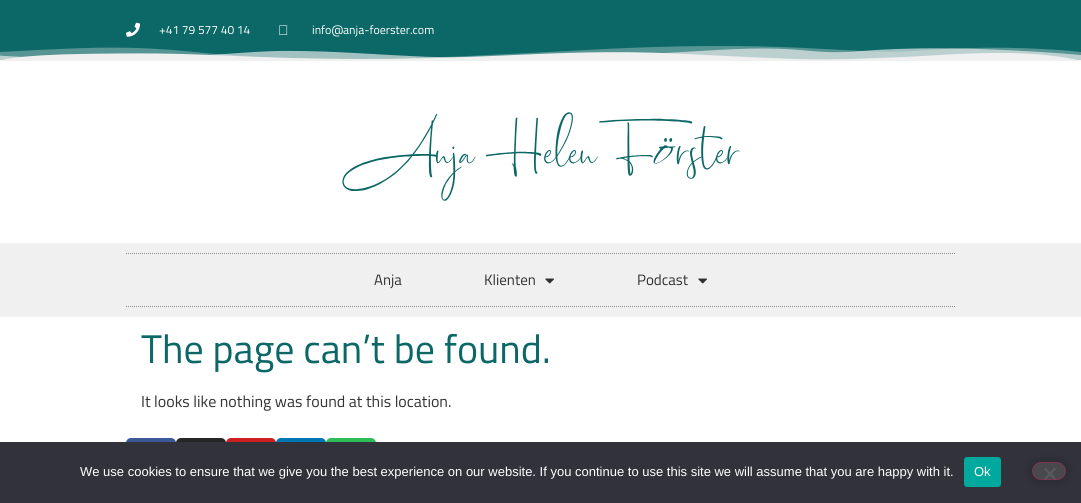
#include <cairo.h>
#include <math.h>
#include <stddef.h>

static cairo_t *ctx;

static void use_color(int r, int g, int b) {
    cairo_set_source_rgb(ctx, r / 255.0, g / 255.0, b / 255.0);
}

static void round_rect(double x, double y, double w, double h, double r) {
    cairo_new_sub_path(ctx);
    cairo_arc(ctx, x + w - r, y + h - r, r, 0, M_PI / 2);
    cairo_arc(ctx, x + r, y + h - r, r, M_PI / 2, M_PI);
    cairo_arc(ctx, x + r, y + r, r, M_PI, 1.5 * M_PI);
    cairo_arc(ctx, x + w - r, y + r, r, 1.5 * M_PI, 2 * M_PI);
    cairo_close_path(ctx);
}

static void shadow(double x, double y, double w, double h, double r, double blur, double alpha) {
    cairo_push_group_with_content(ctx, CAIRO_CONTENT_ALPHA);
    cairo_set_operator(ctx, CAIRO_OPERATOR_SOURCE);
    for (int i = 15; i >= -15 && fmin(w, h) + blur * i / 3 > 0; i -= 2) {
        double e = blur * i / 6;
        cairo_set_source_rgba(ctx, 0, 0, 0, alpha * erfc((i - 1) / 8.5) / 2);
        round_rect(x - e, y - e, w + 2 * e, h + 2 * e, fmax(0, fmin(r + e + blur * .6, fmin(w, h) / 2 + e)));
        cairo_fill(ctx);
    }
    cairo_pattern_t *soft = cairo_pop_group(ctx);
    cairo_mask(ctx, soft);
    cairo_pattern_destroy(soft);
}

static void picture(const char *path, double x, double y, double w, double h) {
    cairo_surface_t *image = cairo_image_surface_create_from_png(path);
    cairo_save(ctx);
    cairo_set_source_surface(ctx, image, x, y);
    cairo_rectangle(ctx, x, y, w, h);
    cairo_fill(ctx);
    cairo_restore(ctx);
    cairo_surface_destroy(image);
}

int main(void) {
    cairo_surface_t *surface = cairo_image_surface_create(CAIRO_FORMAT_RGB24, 1081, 503);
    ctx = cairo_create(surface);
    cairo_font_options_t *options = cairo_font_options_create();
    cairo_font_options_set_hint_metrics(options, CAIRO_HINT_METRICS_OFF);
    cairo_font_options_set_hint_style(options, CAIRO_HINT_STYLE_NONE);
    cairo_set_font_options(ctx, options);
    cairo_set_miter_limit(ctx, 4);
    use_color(255, 255, 255);
    cairo_paint(ctx);
    use_color(12, 103, 103);
    cairo_rectangle(ctx, 0, 0, 1081, 60);
    cairo_fill(ctx);
    picture("img1.png", 126, 22, 14, 15);
    cairo_select_font_face(ctx, "Titillium Web", CAIRO_FONT_SLANT_NORMAL, CAIRO_FONT_WEIGHT_NORMAL);
    cairo_set_font_size(ctx, 12);
    use_color(255, 255, 255);
    cairo_move_to(ctx, 159, 34);
    cairo_show_text(ctx, "+41 79 577 40 14");
    picture("img2.png", 279, 25, 9, 10);
    cairo_move_to(ctx, 312, 34);
    cairo_show_text(ctx, "info@anja-foerster.com");
    picture("img3.png", 0, 46, 1081, 15);
    picture("img4.png", 342, 112, 398, 89);
    use_color(240, 240, 240);
    cairo_rectangle(ctx, 0, 243, 1081, 74);
    cairo_fill(ctx);
    cairo_new_path(ctx);
    cairo_move_to(ctx, 126, 253.5);
    cairo_line_to(ctx, 956, 253.5);
    use_color(142, 142, 142);
    cairo_set_line_width(ctx, 1);
    cairo_set_dash(ctx, (double[]){1, 1}, 2, 0);
    cairo_stroke(ctx);
    cairo_new_path(ctx);
    cairo_move_to(ctx, 126, 306.5);
    cairo_line_to(ctx, 956, 306.5);
    cairo_stroke(ctx);
    cairo_set_font_size(ctx, 15);
    use_color(51, 51, 51);
    cairo_move_to(ctx, 374, 285);
    cairo_show_text(ctx, "Anja");
    cairo_move_to(ctx, 484, 285);
    cairo_show_text(ctx, "Klienten");
    picture("img5.png", 545, 278, 9, 6);
    cairo_move_to(ctx, 637, 285);
    cairo_show_text(ctx, "Podcast");
    picture("img5.png", 698, 278, 9, 6);
    cairo_set_font_size(ctx, 40);
    use_color(12, 103, 103);
    cairo_move_to(ctx, 141, 363);
    cairo_show_text(ctx, "The page can’t be found.");
    cairo_set_font_size(ctx, 16);
    use_color(51, 51, 51);
    cairo_move_to(ctx, 141, 407);
    cairo_show_text(ctx, "It looks like nothing was found at this location.");
    use_color(59, 89, 152);
    round_rect(126, 438, 50, 50, 5);
    cairo_fill(ctx);
    use_color(38, 38, 38);
    round_rect(176, 438, 50, 50, 5);
    cairo_fill(ctx);
    use_color(205, 32, 31);
    round_rect(226, 438, 50, 50, 5);
    cairo_fill(ctx);
    use_color(0, 119, 181);
    round_rect(276, 438, 50, 50, 5);
    cairo_fill(ctx);
    use_color(46, 189, 89);
    round_rect(326, 438, 50, 50, 5);
    cairo_fill(ctx);
    use_color(50, 50, 58);
    cairo_rectangle(ctx, 0, 442, 1081, 61);
    cairo_fill(ctx);
    cairo_select_font_face(ctx, "Liberation Sans", CAIRO_FONT_SLANT_NORMAL, CAIRO_FONT_WEIGHT_NORMAL);
    cairo_set_font_size(ctx, 13);
    use_color(255, 255, 255);
    cairo_move_to(ctx, 80, 476);
    cairo_show_text(ctx, "We use cookies to ensure that we give you the best experience on our website. If you continue to use this site we will assume that you are happy with it.");
    use_color(0, 169, 157);
    round_rect(964, 457, 37, 30, 3);
    cairo_fill(ctx);
    use_color(255, 255, 255);
    cairo_move_to(ctx, 974, 476);
    cairo_show_text(ctx, "Ok");
    use_color(25, 25, 29);
    shadow(1032, 462, 34, 18, 9, 5, 0.5);
    use_color(73, 73, 77);
    round_rect(1032.5, 462.5, 33, 17, 8.5);
    cairo_fill_preserve(ctx);
    use_color(127, 51, 80);
    cairo_set_dash(ctx, NULL, 0, 0);
    cairo_stroke(ctx);
    use_color(89, 89, 93);
    cairo_new_path(ctx);
    cairo_move_to(ctx, 1054.5, 467.5);
    cairo_line_to(ctx, 1056, 469);
    cairo_line_to(ctx, 1045.5, 480);
    cairo_line_to(ctx, 1044, 478.5);
    cairo_close_path(ctx);
    cairo_fill(ctx);
    cairo_new_path(ctx);
    cairo_move_to(ctx, 1044, 469);
    cairo_line_to(ctx, 1045.5, 467.5);
    cairo_line_to(ctx, 1056, 478.5);
    cairo_line_to(ctx, 1054.5, 480);
    cairo_close_path(ctx);
    cairo_fill(ctx);
    cairo_surface_write_to_png(surface, "result.png");
    cairo_font_options_destroy(options);
    cairo_destroy(ctx);
    cairo_surface_destroy(surface);
    return 0;
}
